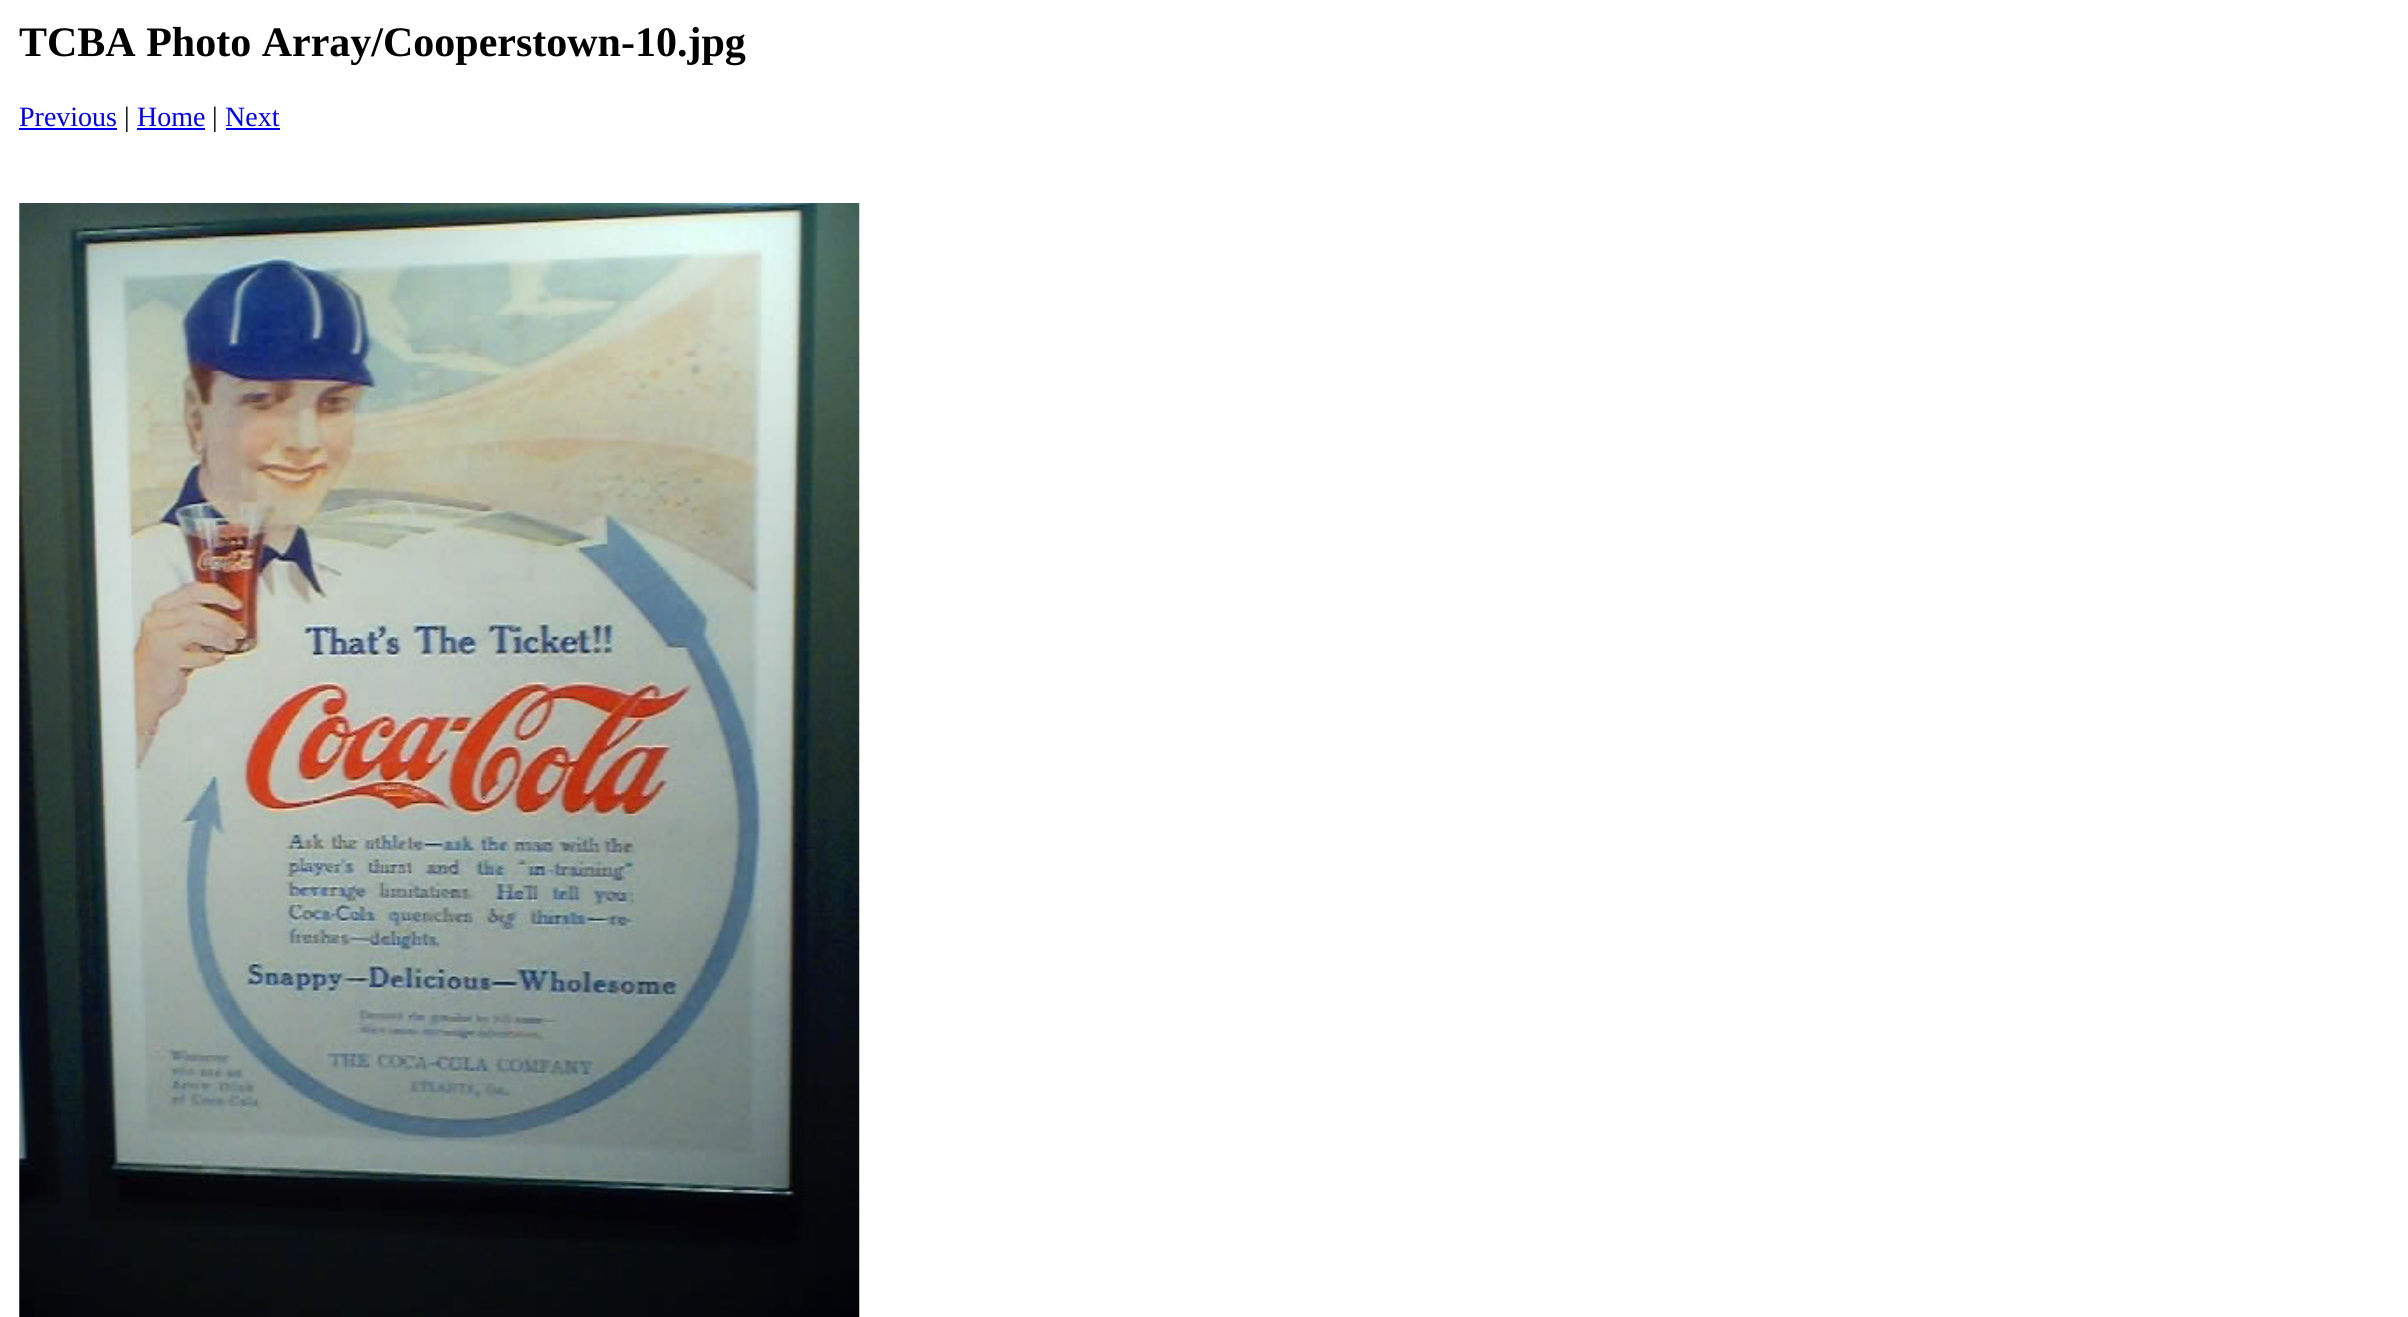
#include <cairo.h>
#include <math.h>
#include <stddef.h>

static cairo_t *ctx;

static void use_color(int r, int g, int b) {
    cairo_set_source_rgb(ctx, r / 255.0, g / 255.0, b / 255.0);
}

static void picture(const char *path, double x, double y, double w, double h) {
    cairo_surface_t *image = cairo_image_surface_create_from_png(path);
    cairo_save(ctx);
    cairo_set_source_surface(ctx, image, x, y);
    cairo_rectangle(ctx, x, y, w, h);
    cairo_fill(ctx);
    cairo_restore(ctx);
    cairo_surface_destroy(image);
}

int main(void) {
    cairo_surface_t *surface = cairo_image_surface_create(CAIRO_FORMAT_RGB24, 2408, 1317);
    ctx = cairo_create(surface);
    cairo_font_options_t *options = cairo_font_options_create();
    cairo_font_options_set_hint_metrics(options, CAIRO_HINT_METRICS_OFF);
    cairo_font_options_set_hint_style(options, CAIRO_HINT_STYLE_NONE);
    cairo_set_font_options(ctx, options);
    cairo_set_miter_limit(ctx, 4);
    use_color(255, 255, 255);
    cairo_paint(ctx);
    cairo_select_font_face(ctx, "Liberation Serif", CAIRO_FONT_SLANT_NORMAL, CAIRO_FONT_WEIGHT_BOLD);
    cairo_set_font_size(ctx, 42);
    use_color(0, 0, 0);
    cairo_move_to(ctx, 19, 56);
    cairo_show_text(ctx, "TCBA Photo Array/Cooperstown-10.jpg");
    cairo_select_font_face(ctx, "Liberation Serif", CAIRO_FONT_SLANT_NORMAL, CAIRO_FONT_WEIGHT_NORMAL);
    cairo_set_font_size(ctx, 28);
    use_color(0, 0, 238);
    cairo_move_to(ctx, 19, 126);
    cairo_show_text(ctx, "Previous");
    cairo_rectangle(ctx, 19, 128, 98, 2);
    cairo_fill(ctx);
    use_color(0, 0, 0);
    cairo_move_to(ctx, 124, 126);
    cairo_show_text(ctx, "|");
    use_color(0, 0, 238);
    cairo_move_to(ctx, 137, 126);
    cairo_show_text(ctx, "Home");
    cairo_rectangle(ctx, 137, 128, 68, 2);
    cairo_fill(ctx);
    use_color(0, 0, 0);
    cairo_move_to(ctx, 212, 126);
    cairo_show_text(ctx, "|");
    use_color(0, 0, 238);
    cairo_move_to(ctx, 225, 126);
    cairo_show_text(ctx, "Next");
    cairo_rectangle(ctx, 226, 128, 54, 2);
    cairo_fill(ctx);
    picture("img1.png", 19, 203, 841, 1114);
    cairo_surface_write_to_png(surface, "result.png");
    cairo_font_options_destroy(options);
    cairo_destroy(ctx);
    cairo_surface_destroy(surface);
    return 0;
}
